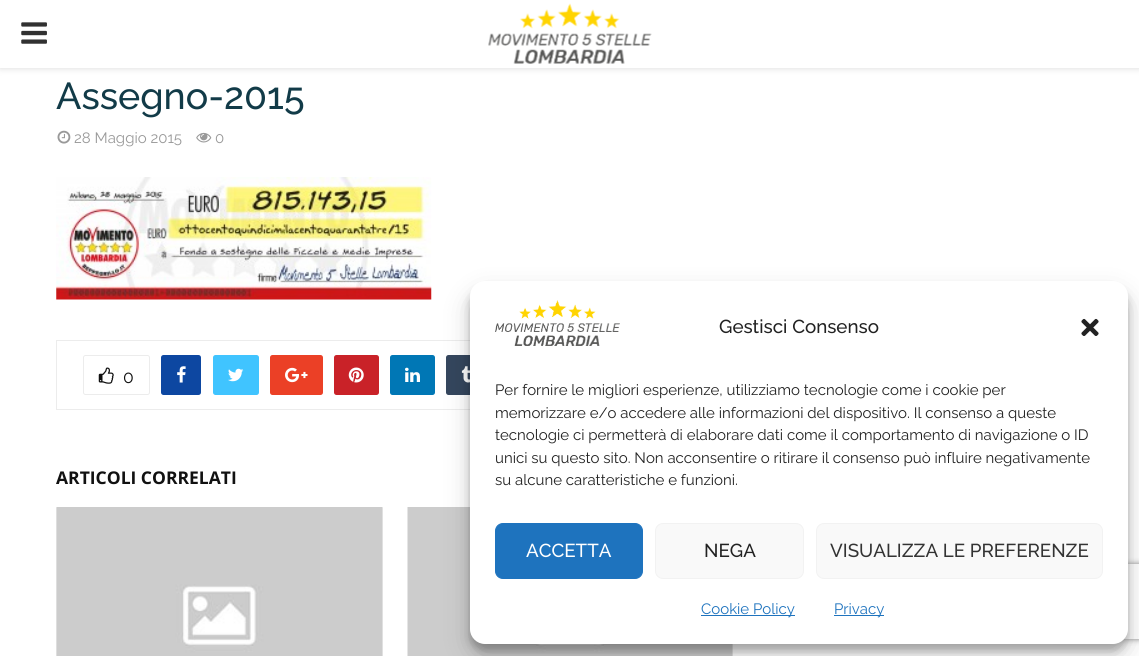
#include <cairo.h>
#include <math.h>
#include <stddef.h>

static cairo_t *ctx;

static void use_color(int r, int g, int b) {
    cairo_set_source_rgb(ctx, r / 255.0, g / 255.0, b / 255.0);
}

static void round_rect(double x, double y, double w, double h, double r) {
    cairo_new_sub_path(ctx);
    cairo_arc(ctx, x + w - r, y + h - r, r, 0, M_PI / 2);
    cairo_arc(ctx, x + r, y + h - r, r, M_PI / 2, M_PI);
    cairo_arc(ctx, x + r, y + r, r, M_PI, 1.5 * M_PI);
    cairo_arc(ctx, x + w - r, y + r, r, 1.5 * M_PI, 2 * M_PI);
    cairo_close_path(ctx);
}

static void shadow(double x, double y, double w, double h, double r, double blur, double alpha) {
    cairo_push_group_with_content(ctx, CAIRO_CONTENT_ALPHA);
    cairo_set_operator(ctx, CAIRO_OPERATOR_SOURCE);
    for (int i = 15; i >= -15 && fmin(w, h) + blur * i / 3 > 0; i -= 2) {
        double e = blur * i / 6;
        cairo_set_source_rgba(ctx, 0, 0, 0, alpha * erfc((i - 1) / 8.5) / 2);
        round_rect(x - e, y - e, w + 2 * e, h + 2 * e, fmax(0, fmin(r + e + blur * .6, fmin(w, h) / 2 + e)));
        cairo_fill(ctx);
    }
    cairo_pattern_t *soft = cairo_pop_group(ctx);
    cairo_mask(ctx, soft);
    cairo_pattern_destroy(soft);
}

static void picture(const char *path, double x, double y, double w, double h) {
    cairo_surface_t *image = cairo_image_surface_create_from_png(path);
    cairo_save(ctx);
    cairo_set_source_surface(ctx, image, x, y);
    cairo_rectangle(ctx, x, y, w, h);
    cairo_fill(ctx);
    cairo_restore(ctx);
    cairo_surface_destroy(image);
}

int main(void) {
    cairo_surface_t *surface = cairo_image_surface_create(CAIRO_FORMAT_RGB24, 1139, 656);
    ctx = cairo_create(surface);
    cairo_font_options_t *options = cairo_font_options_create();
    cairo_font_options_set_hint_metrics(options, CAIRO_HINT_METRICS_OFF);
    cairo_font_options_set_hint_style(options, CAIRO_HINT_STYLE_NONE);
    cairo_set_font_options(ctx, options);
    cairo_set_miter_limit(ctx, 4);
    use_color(255, 255, 255);
    cairo_paint(ctx);
    use_color(190, 190, 190);
    shadow(0, 1, 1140, 68, 0, 3, 0.46);
    use_color(255, 255, 255);
    cairo_rectangle(ctx, 0, 0, 1139, 68);
    cairo_fill(ctx);
    picture("img1.png", 21, 22, 26, 22);
    picture("img2.png", 488, 3, 164, 61);
    cairo_select_font_face(ctx, "Raleway Medium", CAIRO_FONT_SLANT_NORMAL, CAIRO_FONT_WEIGHT_NORMAL);
    cairo_set_font_size(ctx, 37.5);
    use_color(18, 59, 72);
    cairo_move_to(ctx, 56, 109);
    cairo_show_text(ctx, "Assegno-2015");
    picture("img3.png", 57, 130, 14, 14);
    cairo_select_font_face(ctx, "Raleway", CAIRO_FONT_SLANT_NORMAL, CAIRO_FONT_WEIGHT_NORMAL);
    cairo_set_font_size(ctx, 15);
    use_color(153, 153, 153);
    cairo_move_to(ctx, 74, 143);
    cairo_show_text(ctx, "28 Maggio 2015");
    picture("img4.png", 196, 132, 16, 11);
    cairo_move_to(ctx, 215, 143);
    cairo_show_text(ctx, "0");
    picture("img5.png", 56, 177, 376, 123);
    cairo_rectangle(ctx, 56.5, 340.5, 1027, 69);
    use_color(236, 236, 236);
    cairo_set_line_width(ctx, 1);
    cairo_stroke(ctx);
    round_rect(83.5, 355.5, 66, 39, 2);
    cairo_stroke(ctx);
    picture("img6.png", 98, 367, 16, 17);
    cairo_set_font_size(ctx, 17.5);
    use_color(17, 17, 17);
    cairo_move_to(ctx, 123, 383);
    cairo_show_text(ctx, "0");
    use_color(13, 71, 161);
    round_rect(161, 355, 40, 40, 2.5);
    cairo_fill(ctx);
    picture("img7.png", 177, 366, 9, 17);
    use_color(64, 196, 255);
    round_rect(213, 355, 46, 40, 2.5);
    cairo_fill(ctx);
    picture("img8.png", 228, 368, 16, 14);
    use_color(235, 64, 38);
    round_rect(270, 355, 53, 40, 2.5);
    cairo_fill(ctx);
    picture("img9.png", 285, 367, 23, 16);
    use_color(201, 34, 40);
    round_rect(334, 355, 45, 40, 2.5);
    cairo_fill(ctx);
    picture("img10.png", 348, 367, 16, 16);
    use_color(0, 119, 181);
    round_rect(390, 355, 45, 40, 2.5);
    cairo_fill(ctx);
    picture("img11.png", 405, 367, 15, 15);
    use_color(52, 70, 93);
    round_rect(446, 355, 40, 40, 2.5);
    cairo_fill(ctx);
    picture("img12.png", 461, 366, 9, 17);
    cairo_select_font_face(ctx, "Open Sans", CAIRO_FONT_SLANT_NORMAL, CAIRO_FONT_WEIGHT_BOLD);
    use_color(17, 17, 17);
    cairo_move_to(ctx, 56, 484);
    cairo_show_text(ctx, "ARTICOLI CORRELATI");
    use_color(245, 245, 245);
    cairo_rectangle(ctx, 56, 508, 327, 148);
    cairo_fill(ctx);
    picture("img13.png", 56, 507, 327, 149);
    cairo_rectangle(ctx, 732, 644, 1, 12);
    cairo_fill(ctx);
    picture("img14.png", 407, 507, 326, 149);
    use_color(0, 0, 0);
    shadow(470, 289, 658, 362, 15, 4, 0.23);
    shadow(470, 294, 658, 362, 15, 12.5, 0.19);
    cairo_save(ctx);
    cairo_set_fill_rule(ctx, CAIRO_FILL_RULE_EVEN_ODD);
    cairo_new_path(ctx);
    cairo_move_to(ctx, 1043, 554);
    cairo_line_to(ctx, 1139, 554);
    cairo_line_to(ctx, 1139, 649);
    cairo_line_to(ctx, 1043, 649);
    cairo_close_path(ctx);
    cairo_move_to(ctx, 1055.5, 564);
    cairo_line_to(ctx, 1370.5, 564);
    cairo_curve_to(ctx, 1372, 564, 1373, 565, 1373, 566.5);
    cairo_line_to(ctx, 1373, 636.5);
    cairo_curve_to(ctx, 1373, 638, 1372, 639, 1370.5, 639);
    cairo_line_to(ctx, 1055.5, 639);
    cairo_curve_to(ctx, 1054, 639, 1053, 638, 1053, 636.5);
    cairo_line_to(ctx, 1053, 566.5);
    cairo_curve_to(ctx, 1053, 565, 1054, 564, 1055.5, 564);
    cairo_close_path(ctx);
    cairo_clip(ctx);
    use_color(128, 128, 128);
    shadow(1053, 564, 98, 75, 2.5, 3, 1);
    cairo_restore(ctx);
    use_color(255, 255, 255);
    round_rect(470, 281, 658, 363, 15);
    cairo_fill(ctx);
    picture("img15.png", 495, 300, 125, 46);
    cairo_select_font_face(ctx, "Raleway Medium", CAIRO_FONT_SLANT_NORMAL, CAIRO_FONT_WEIGHT_NORMAL);
    cairo_set_font_size(ctx, 18.75);
    use_color(34, 34, 34);
    cairo_move_to(ctx, 719, 333);
    cairo_show_text(ctx, "Gestisci Consenso");
    picture("img16.png", 1081, 318, 18, 18);
    cairo_select_font_face(ctx, "Raleway", CAIRO_FONT_SLANT_NORMAL, CAIRO_FONT_WEIGHT_NORMAL);
    cairo_set_font_size(ctx, 15);
    cairo_move_to(ctx, 495, 395);
    cairo_show_text(ctx, "Per fornire le migliori esperienze, utilizziamo tecnologie come i cookie per");
    cairo_move_to(ctx, 495, 418);
    cairo_show_text(ctx, "memorizzare e/o accedere alle informazioni del dispositivo. Il consenso a queste");
    cairo_move_to(ctx, 495, 440);
    cairo_show_text(ctx, "tecnologie ci permetterà di elaborare dati come il comportamento di navigazione o ID");
    cairo_move_to(ctx, 495, 463);
    cairo_show_text(ctx, "unici su questo sito. Non acconsentire o ritirare il consenso può influire negativamente");
    cairo_move_to(ctx, 495, 485);
    cairo_show_text(ctx, "su alcune caratteristiche e funzioni.");
    use_color(30, 115, 190);
    round_rect(495.5, 523.5, 147, 55, 7.5);
    cairo_fill_preserve(ctx);
    cairo_stroke(ctx);
    cairo_select_font_face(ctx, "Raleway Medium", CAIRO_FONT_SLANT_NORMAL, CAIRO_FONT_WEIGHT_NORMAL);
    cairo_set_font_size(ctx, 18.75);
    use_color(255, 255, 255);
    cairo_move_to(ctx, 526, 557);
    cairo_show_text(ctx, "ACCETTA");
    use_color(249, 249, 249);
    round_rect(655.5, 523.5, 148, 55, 7.5);
    cairo_fill_preserve(ctx);
    use_color(242, 242, 242);
    cairo_stroke(ctx);
    use_color(34, 34, 34);
    cairo_move_to(ctx, 704, 557);
    cairo_show_text(ctx, "NEGA");
    use_color(249, 249, 249);
    round_rect(816.5, 523.5, 286, 55, 7.5);
    cairo_fill_preserve(ctx);
    use_color(242, 242, 242);
    cairo_stroke(ctx);
    use_color(51, 51, 51);
    cairo_move_to(ctx, 830, 557);
    cairo_show_text(ctx, "VISUALIZZA LE PREFERENZE");
    use_color(30, 115, 190);
    cairo_rectangle(ctx, 701, 615, 94, 1);
    cairo_fill(ctx);
    cairo_select_font_face(ctx, "Raleway", CAIRO_FONT_SLANT_NORMAL, CAIRO_FONT_WEIGHT_NORMAL);
    cairo_set_font_size(ctx, 15);
    cairo_move_to(ctx, 701, 614);
    cairo_show_text(ctx, "Cookie Policy");
    cairo_rectangle(ctx, 834, 615, 50, 1);
    cairo_fill(ctx);
    cairo_move_to(ctx, 834, 614);
    cairo_show_text(ctx, "Privacy");
    cairo_surface_write_to_png(surface, "result.png");
    cairo_font_options_destroy(options);
    cairo_destroy(ctx);
    cairo_surface_destroy(surface);
    return 0;
}
